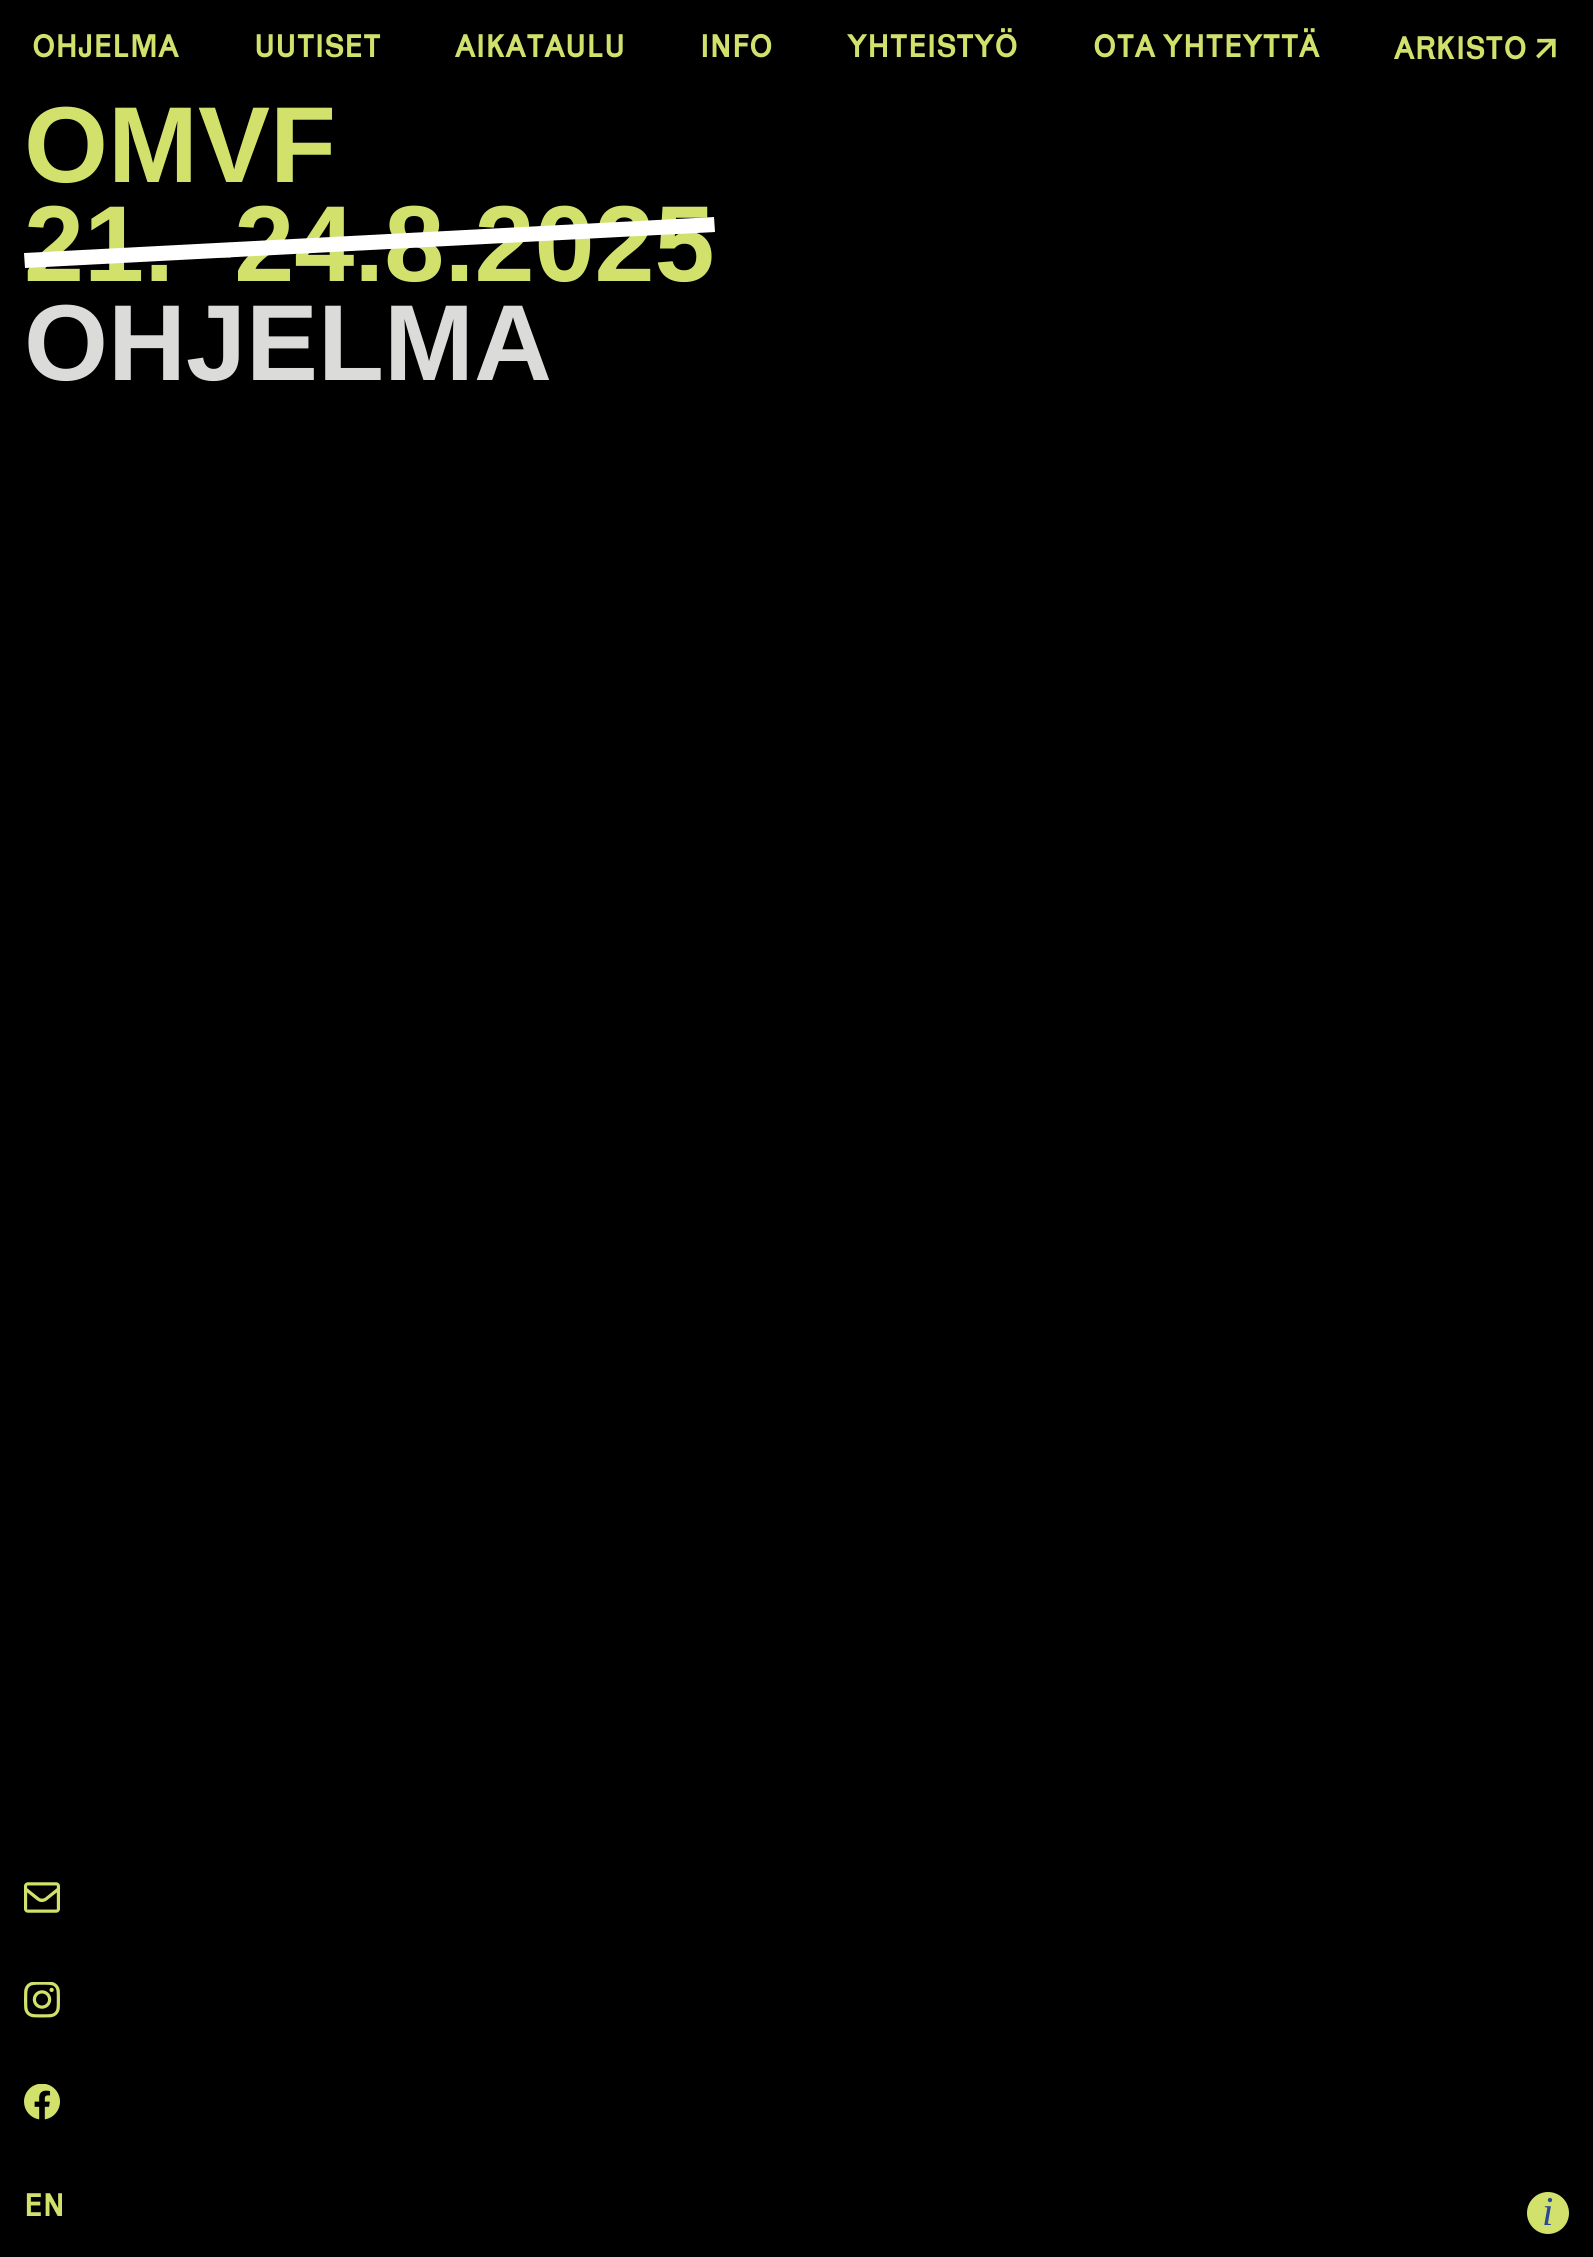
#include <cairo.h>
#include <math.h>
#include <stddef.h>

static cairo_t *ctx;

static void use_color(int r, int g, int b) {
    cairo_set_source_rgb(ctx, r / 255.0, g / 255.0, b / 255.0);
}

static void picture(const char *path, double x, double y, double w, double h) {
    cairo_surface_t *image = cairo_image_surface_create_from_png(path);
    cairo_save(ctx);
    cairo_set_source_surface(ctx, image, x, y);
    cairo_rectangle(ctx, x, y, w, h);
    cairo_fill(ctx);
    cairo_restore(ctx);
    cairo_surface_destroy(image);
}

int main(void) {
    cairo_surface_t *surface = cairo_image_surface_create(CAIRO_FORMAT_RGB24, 1593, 2257);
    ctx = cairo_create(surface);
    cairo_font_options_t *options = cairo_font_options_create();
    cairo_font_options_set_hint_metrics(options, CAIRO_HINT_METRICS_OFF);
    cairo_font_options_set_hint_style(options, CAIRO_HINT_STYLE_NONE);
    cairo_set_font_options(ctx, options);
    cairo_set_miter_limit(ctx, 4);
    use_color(0, 0, 0);
    cairo_paint(ctx);
    cairo_select_font_face(ctx, "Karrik", CAIRO_FONT_SLANT_NORMAL, CAIRO_FONT_WEIGHT_NORMAL);
    cairo_set_font_size(ctx, 33.5);
    use_color(210, 225, 108);
    cairo_move_to(ctx, 32, 57);
    cairo_show_text(ctx, "OHJELMA");
    cairo_move_to(ctx, 254, 57);
    cairo_show_text(ctx, "UUTISET");
    cairo_move_to(ctx, 455, 57);
    cairo_show_text(ctx, "AIKATAULU");
    cairo_move_to(ctx, 700, 57);
    cairo_show_text(ctx, "INFO");
    cairo_move_to(ctx, 847, 57);
    cairo_show_text(ctx, "YHTEISTYÖ");
    cairo_move_to(ctx, 1093, 57);
    cairo_show_text(ctx, "OTA YHTEYTTÄ");
    cairo_move_to(ctx, 1394, 59);
    cairo_show_text(ctx, "ARKISTO");
    picture("img1.png", 1536, 38, 20, 21);
    cairo_select_font_face(ctx, "Liberation Sans", CAIRO_FONT_SLANT_NORMAL, CAIRO_FONT_WEIGHT_BOLD);
    cairo_set_font_size(ctx, 108);
    cairo_move_to(ctx, 24, 182);
    cairo_show_text(ctx, "OMVF");
    cairo_move_to(ctx, 24, 281);
    cairo_show_text(ctx, "21.–24.8.2025");
    use_color(255, 255, 255);
    cairo_new_path(ctx);
    cairo_move_to(ctx, 24, 253);
    cairo_line_to(ctx, 714, 217);
    cairo_line_to(ctx, 715, 232);
    cairo_line_to(ctx, 25, 268);
    cairo_close_path(ctx);
    cairo_fill(ctx);
    use_color(219, 219, 217);
    cairo_move_to(ctx, 24, 380);
    cairo_show_text(ctx, "OHJELMA");
    picture("img2.png", 24, 1882, 36, 31);
    picture("img3.png", 24, 1982, 36, 36);
    picture("img4.png", 24, 2084, 36, 36);
    cairo_select_font_face(ctx, "Karrik", CAIRO_FONT_SLANT_NORMAL, CAIRO_FONT_WEIGHT_NORMAL);
    cairo_set_font_size(ctx, 33.5);
    use_color(210, 225, 108);
    cairo_move_to(ctx, 24, 2216);
    cairo_show_text(ctx, "EN");
    cairo_new_path(ctx);
    cairo_arc(ctx, 1548, 2213, 21, 0, 2 * M_PI);
    cairo_fill(ctx);
    cairo_select_font_face(ctx, "Liberation Serif", CAIRO_FONT_SLANT_ITALIC, CAIRO_FONT_WEIGHT_NORMAL);
    cairo_set_font_size(ctx, 41);
    use_color(41, 72, 152);
    cairo_move_to(ctx, 1542, 2225);
    cairo_show_text(ctx, "i");
    cairo_surface_write_to_png(surface, "result.png");
    cairo_font_options_destroy(options);
    cairo_destroy(ctx);
    cairo_surface_destroy(surface);
    return 0;
}
